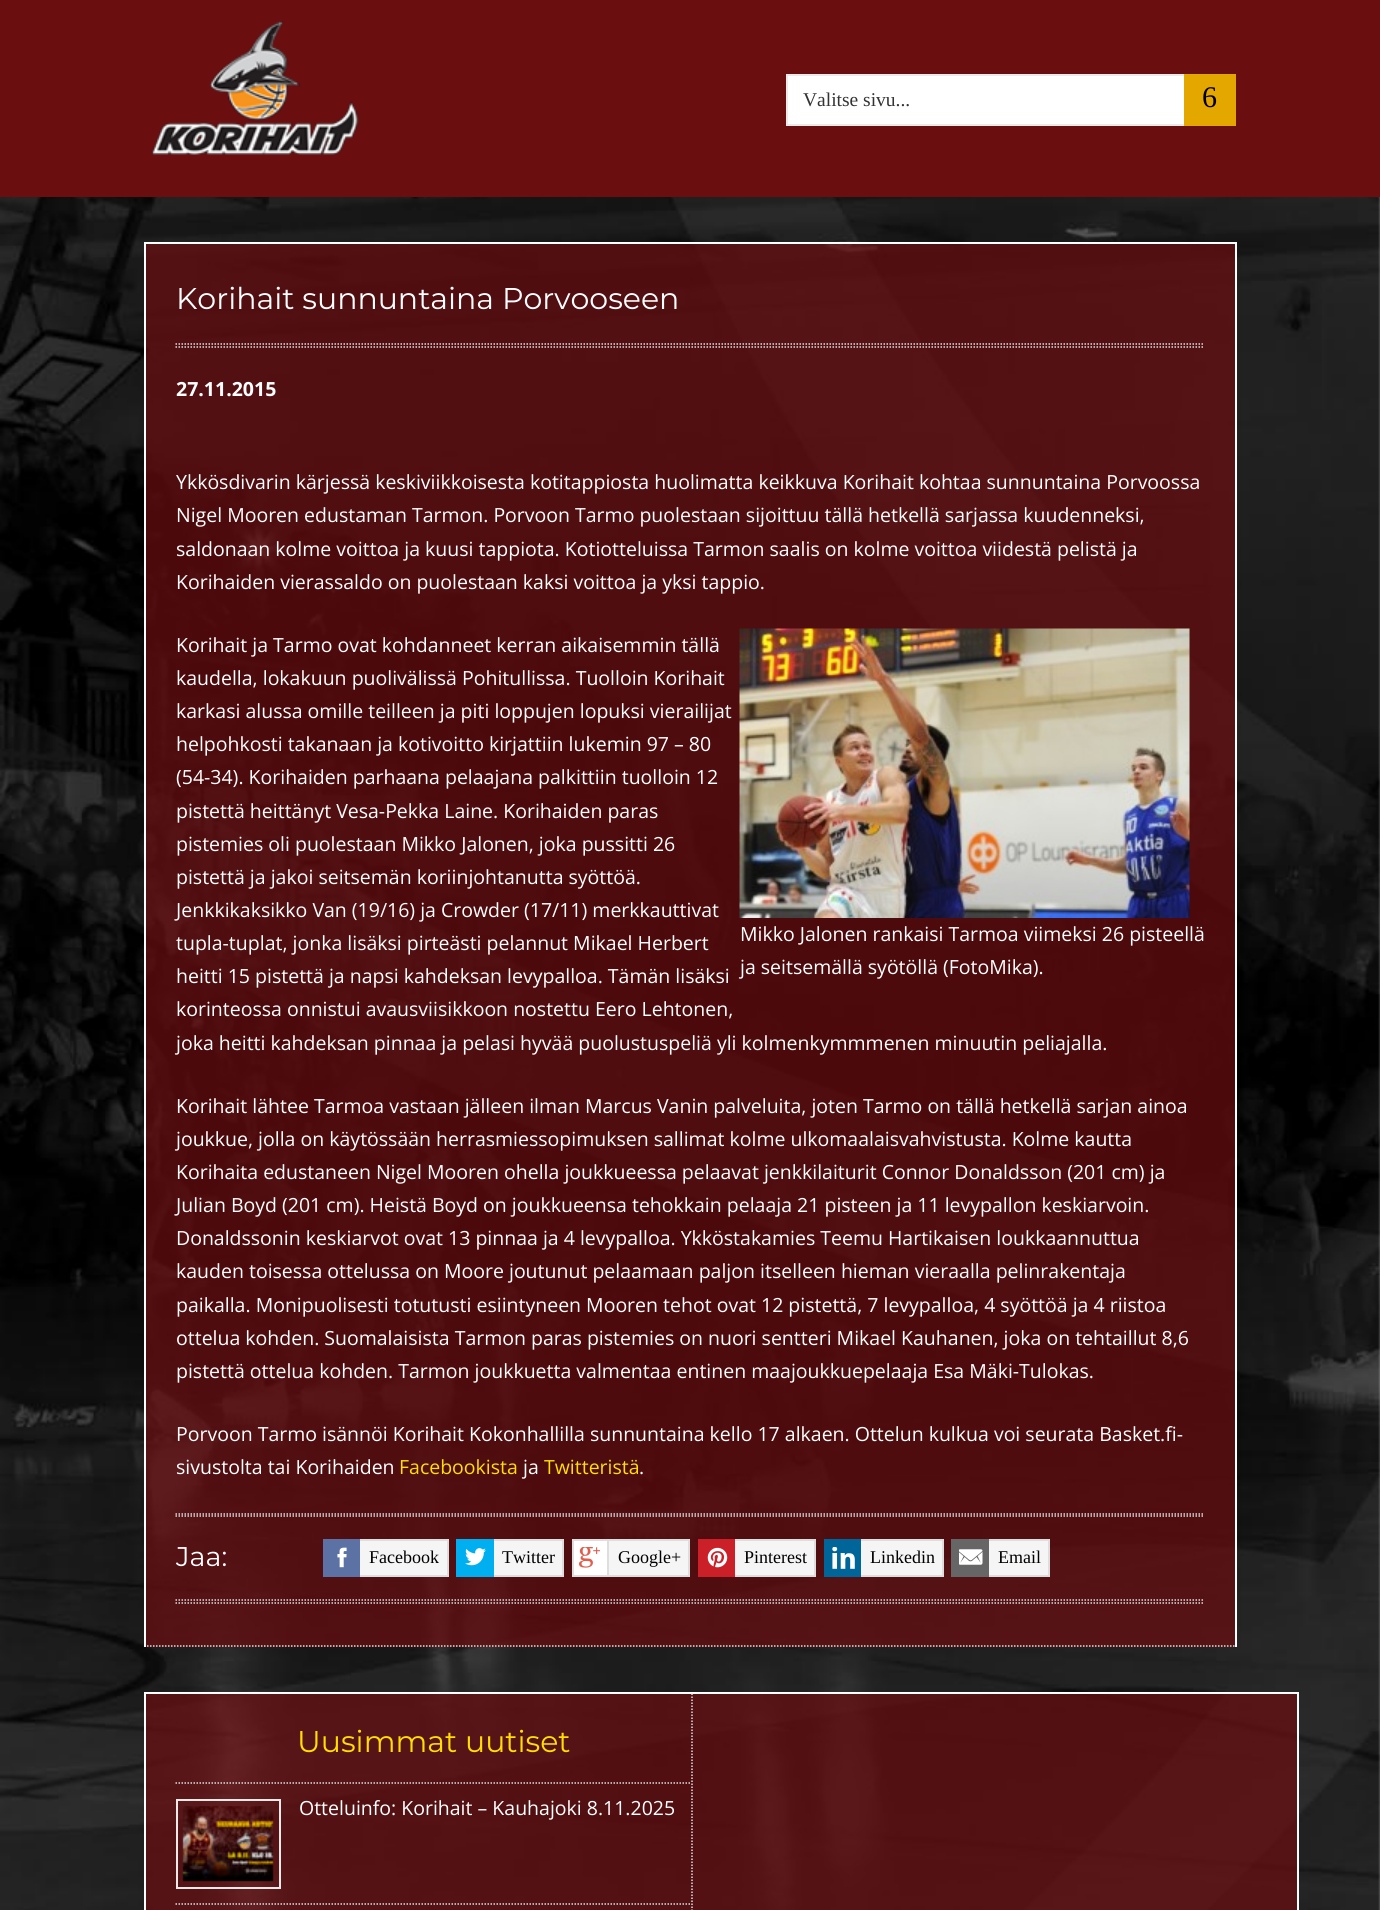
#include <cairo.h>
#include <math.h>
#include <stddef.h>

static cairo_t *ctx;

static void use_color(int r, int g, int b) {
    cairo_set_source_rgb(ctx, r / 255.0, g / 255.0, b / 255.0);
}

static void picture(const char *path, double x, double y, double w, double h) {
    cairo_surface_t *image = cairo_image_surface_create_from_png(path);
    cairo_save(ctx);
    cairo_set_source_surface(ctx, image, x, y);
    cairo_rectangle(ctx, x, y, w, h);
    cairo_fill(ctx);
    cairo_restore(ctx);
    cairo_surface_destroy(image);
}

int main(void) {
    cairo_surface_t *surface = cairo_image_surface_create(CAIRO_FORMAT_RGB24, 1380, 1910);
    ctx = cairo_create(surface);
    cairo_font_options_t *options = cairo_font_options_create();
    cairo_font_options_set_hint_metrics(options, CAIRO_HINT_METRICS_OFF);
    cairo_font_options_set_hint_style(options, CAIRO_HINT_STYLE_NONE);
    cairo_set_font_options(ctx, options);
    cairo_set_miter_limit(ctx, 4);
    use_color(255, 255, 255);
    cairo_paint(ctx);
    picture("img1.png", 0, 197, 1380, 1713);
    use_color(107, 14, 16);
    cairo_rectangle(ctx, 0, 0, 1380, 197);
    cairo_fill(ctx);
    picture("img2.png", 151, 20, 208, 135);
    use_color(255, 255, 255);
    cairo_rectangle(ctx, 788, 76, 396, 48);
    cairo_fill(ctx);
    cairo_rectangle(ctx, 787, 75, 448, 50);
    use_color(234, 234, 234);
    cairo_stroke(ctx);
    cairo_select_font_face(ctx, "Liberation Serif", CAIRO_FONT_SLANT_NORMAL, CAIRO_FONT_WEIGHT_NORMAL);
    cairo_set_font_size(ctx, 19.5);
    use_color(51, 51, 51);
    cairo_move_to(ctx, 803, 106);
    cairo_show_text(ctx, "Valitse sivu...");
    use_color(228, 167, 0);
    cairo_rectangle(ctx, 1184, 74, 52, 52);
    cairo_fill(ctx);
    cairo_set_font_size(ctx, 30);
    use_color(0, 0, 0);
    cairo_move_to(ctx, 1202, 107);
    cairo_show_text(ctx, "6");
    cairo_set_source_rgba(ctx, 0.42, 0.055, 0.063, 0.7);
    cairo_rectangle(ctx, 146, 244, 1089, 1403);
    cairo_fill(ctx);
    use_color(255, 255, 255);
    cairo_rectangle(ctx, 144, 242, 1092, 2);
    cairo_fill(ctx);
    cairo_rectangle(ctx, 1235, 242, 2, 1405);
    cairo_fill(ctx);
    cairo_new_path(ctx);
    cairo_move_to(ctx, 144, 1646);
    cairo_line_to(ctx, 1236, 1646);
    use_color(222, 222, 222);
    cairo_set_line_width(ctx, 1.5);
    cairo_set_dash(ctx, (double[]){1.5, 1.5}, 2, 0);
    cairo_stroke(ctx);
    use_color(255, 255, 255);
    cairo_rectangle(ctx, 144, 242, 2, 1405);
    cairo_fill(ctx);
    cairo_new_path(ctx);
    cairo_move_to(ctx, 175.5, 1514);
    cairo_line_to(ctx, 1204.5, 1514);
    use_color(222, 222, 222);
    cairo_stroke(ctx);
    cairo_new_path(ctx);
    cairo_move_to(ctx, 175.5, 344);
    cairo_line_to(ctx, 1204.5, 344);
    cairo_stroke(ctx);
    cairo_select_font_face(ctx, "Montserrat", CAIRO_FONT_SLANT_NORMAL, CAIRO_FONT_WEIGHT_NORMAL);
    use_color(255, 255, 255);
    cairo_move_to(ctx, 176, 309);
    cairo_show_text(ctx, "Korihait sunnuntaina Porvooseen");
    cairo_new_path(ctx);
    cairo_move_to(ctx, 175.5, 347);
    cairo_line_to(ctx, 1204.5, 347);
    use_color(222, 222, 222);
    cairo_stroke(ctx);
    cairo_select_font_face(ctx, "Open Sans", CAIRO_FONT_SLANT_NORMAL, CAIRO_FONT_WEIGHT_BOLD);
    cairo_set_font_size(ctx, 19.5);
    use_color(255, 255, 255);
    cairo_move_to(ctx, 176, 396);
    cairo_show_text(ctx, "27.11.2015");
    cairo_select_font_face(ctx, "Open Sans", CAIRO_FONT_SLANT_NORMAL, CAIRO_FONT_WEIGHT_NORMAL);
    cairo_move_to(ctx, 176, 489);
    cairo_show_text(ctx, "Ykkösdivarin kärjessä keskiviikkoisesta kotitappiosta huolimatta keikkuva Korihait kohtaa sunnuntaina Porvoossa");
    cairo_move_to(ctx, 176, 522);
    cairo_show_text(ctx, "Nigel Mooren edustaman Tarmon. Porvoon Tarmo puolestaan sijoittuu tällä hetkellä sarjassa kuudenneksi,");
    cairo_move_to(ctx, 176, 556);
    cairo_show_text(ctx, "saldonaan kolme voittoa ja kuusi tappiota. Kotiotteluissa Tarmon saalis on kolme voittoa viidestä pelistä ja");
    cairo_move_to(ctx, 176, 589);
    cairo_show_text(ctx, "Korihaiden vierassaldo on puolestaan kaksi voittoa ja yksi tappio.");
    cairo_move_to(ctx, 176, 652);
    cairo_show_text(ctx, "Korihait ja Tarmo ovat kohdanneet kerran aikaisemmin tällä");
    cairo_move_to(ctx, 176, 685);
    cairo_show_text(ctx, "kaudella, lokakuun puolivälissä Pohitullissa. Tuolloin Korihait");
    cairo_move_to(ctx, 176, 718);
    cairo_show_text(ctx, "karkasi alussa omille teilleen ja piti loppujen lopuksi vierailijat");
    cairo_move_to(ctx, 176, 751);
    cairo_show_text(ctx, "helpohkosti takanaan ja kotivoitto kirjattiin lukemin 97 – 80");
    cairo_move_to(ctx, 176, 784);
    cairo_show_text(ctx, "(54-34). Korihaiden parhaana pelaajana palkittiin tuolloin 12");
    cairo_move_to(ctx, 176, 818);
    cairo_show_text(ctx, "pistettä heittänyt Vesa-Pekka Laine. Korihaiden paras");
    cairo_move_to(ctx, 176, 851);
    cairo_show_text(ctx, "pistemies oli puolestaan Mikko Jalonen, joka pussitti 26");
    cairo_move_to(ctx, 176, 884);
    cairo_show_text(ctx, "pistettä ja jakoi seitsemän koriinjohtanutta syöttöä.");
    cairo_move_to(ctx, 176, 917);
    cairo_show_text(ctx, "Jenkkikaksikko Van (19/16) ja Crowder (17/11) merkkauttivat");
    cairo_move_to(ctx, 176, 950);
    cairo_show_text(ctx, "tupla-tuplat, jonka lisäksi pirteästi pelannut Mikael Herbert");
    cairo_move_to(ctx, 176, 983);
    cairo_show_text(ctx, "heitti 15 pistettä ja napsi kahdeksan levypalloa. Tämän lisäksi");
    cairo_move_to(ctx, 176, 1016);
    cairo_show_text(ctx, "korinteossa onnistui avausviisikkoon nostettu Eero Lehtonen,");
    cairo_move_to(ctx, 176, 1050);
    cairo_show_text(ctx, "joka heitti kahdeksan pinnaa ja pelasi hyvää puolustuspeliä yli kolmenkymmmenen minuutin peliajalla.");
    picture("img3.png", 739, 628, 451, 290);
    cairo_move_to(ctx, 740, 941);
    cairo_show_text(ctx, "Mikko Jalonen rankaisi Tarmoa viimeksi 26 pisteellä");
    cairo_move_to(ctx, 740, 974);
    cairo_show_text(ctx, "ja seitsemällä syötöllä (FotoMika).");
    cairo_move_to(ctx, 176, 1113);
    cairo_show_text(ctx, "Korihait lähtee Tarmoa vastaan jälleen ilman Marcus Vanin palveluita, joten Tarmo on tällä hetkellä sarjan ainoa");
    cairo_move_to(ctx, 176, 1146);
    cairo_show_text(ctx, "joukkue, jolla on käytössään herrasmiessopimuksen sallimat kolme ulkomaalaisvahvistusta. Kolme kautta");
    cairo_move_to(ctx, 176, 1179);
    cairo_show_text(ctx, "Korihaita edustaneen Nigel Mooren ohella joukkueessa pelaavat jenkkilaiturit Connor Donaldsson (201 cm) ja");
    cairo_move_to(ctx, 176, 1212);
    cairo_show_text(ctx, "Julian Boyd (201 cm). Heistä Boyd on joukkueensa tehokkain pelaaja 21 pisteen ja 11 levypallon keskiarvoin.");
    cairo_move_to(ctx, 176, 1245);
    cairo_show_text(ctx, "Donaldssonin keskiarvot ovat 13 pinnaa ja 4 levypalloa. Ykköstakamies Teemu Hartikaisen loukkaannuttua");
    cairo_move_to(ctx, 176, 1278);
    cairo_show_text(ctx, "kauden toisessa ottelussa on Moore joutunut pelaamaan paljon itselleen hieman vieraalla pelinrakentaja");
    cairo_move_to(ctx, 176, 1312);
    cairo_show_text(ctx, "paikalla. Monipuolisesti totutusti esiintyneen Mooren tehot ovat 12 pistettä, 7 levypalloa, 4 syöttöä ja 4 riistoa");
    cairo_move_to(ctx, 176, 1345);
    cairo_show_text(ctx, "ottelua kohden. Suomalaisista Tarmon paras pistemies on nuori sentteri Mikael Kauhanen, joka on tehtaillut 8,6");
    cairo_move_to(ctx, 176, 1378);
    cairo_show_text(ctx, "pistettä ottelua kohden. Tarmon joukkuetta valmentaa entinen maajoukkuepelaaja Esa Mäki-Tulokas.");
    cairo_move_to(ctx, 176, 1441);
    cairo_show_text(ctx, "Porvoon Tarmo isännöi Korihait Kokonhallilla sunnuntaina kello 17 alkaen. Ottelun kulkua voi seurata Basket.fi-");
    cairo_move_to(ctx, 176, 1474);
    cairo_show_text(ctx, "sivustolta tai Korihaiden");
    use_color(255, 221, 0);
    cairo_move_to(ctx, 399, 1474);
    cairo_show_text(ctx, "Facebookista");
    use_color(255, 255, 255);
    cairo_move_to(ctx, 523, 1474);
    cairo_show_text(ctx, "ja");
    use_color(255, 221, 0);
    cairo_move_to(ctx, 544, 1474);
    cairo_show_text(ctx, "Twitteristä");
    use_color(255, 255, 255);
    cairo_move_to(ctx, 639, 1474);
    cairo_show_text(ctx, ".");
    cairo_new_path(ctx);
    cairo_move_to(ctx, 175.5, 1516);
    cairo_line_to(ctx, 1204.5, 1516);
    use_color(222, 222, 222);
    cairo_stroke(ctx);
    cairo_new_path(ctx);
    cairo_move_to(ctx, 175.5, 1600);
    cairo_line_to(ctx, 1204.5, 1600);
    cairo_stroke(ctx);
    cairo_select_font_face(ctx, "Montserrat", CAIRO_FONT_SLANT_NORMAL, CAIRO_FONT_WEIGHT_NORMAL);
    cairo_set_font_size(ctx, 27);
    use_color(255, 255, 255);
    cairo_move_to(ctx, 176, 1566);
    cairo_show_text(ctx, "Jaa:");
    use_color(245, 245, 245);
    cairo_rectangle(ctx, 360, 1541, 87, 34);
    cairo_fill(ctx);
    cairo_rectangle(ctx, 324, 1540, 124, 36);
    use_color(222, 222, 222);
    cairo_set_line_width(ctx, 2);
    cairo_set_dash(ctx, NULL, 0, 0);
    cairo_stroke(ctx);
    use_color(93, 114, 164);
    cairo_rectangle(ctx, 323, 1539, 37, 38);
    cairo_fill(ctx);
    picture("img4.png", 337, 1547, 10, 21);
    cairo_select_font_face(ctx, "Liberation Serif", CAIRO_FONT_SLANT_NORMAL, CAIRO_FONT_WEIGHT_NORMAL);
    cairo_set_font_size(ctx, 18);
    use_color(0, 0, 0);
    cairo_move_to(ctx, 369, 1563);
    cairo_show_text(ctx, "Facebook");
    use_color(245, 245, 245);
    cairo_rectangle(ctx, 494, 1541, 68, 34);
    cairo_fill(ctx);
    cairo_rectangle(ctx, 457, 1540, 106, 36);
    use_color(222, 222, 222);
    cairo_stroke(ctx);
    use_color(0, 175, 239);
    cairo_rectangle(ctx, 456, 1539, 38, 38);
    cairo_fill(ctx);
    picture("img5.png", 465, 1548, 21, 18);
    use_color(0, 0, 0);
    cairo_move_to(ctx, 502, 1563);
    cairo_show_text(ctx, "Twitter");
    use_color(245, 245, 245);
    cairo_rectangle(ctx, 609, 1541, 79, 34);
    cairo_fill(ctx);
    cairo_rectangle(ctx, 573, 1540, 116, 36);
    use_color(222, 222, 222);
    cairo_stroke(ctx);
    use_color(255, 255, 255);
    cairo_rectangle(ctx, 574, 1541, 33, 34);
    cairo_fill(ctx);
    picture("img6.png", 579, 1547, 21, 21);
    cairo_rectangle(ctx, 573, 1540, 35, 36);
    use_color(222, 222, 222);
    cairo_stroke(ctx);
    use_color(0, 0, 0);
    cairo_move_to(ctx, 618, 1563);
    cairo_show_text(ctx, "Google+");
    use_color(245, 245, 245);
    cairo_rectangle(ctx, 735, 1541, 79, 34);
    cairo_fill(ctx);
    cairo_rectangle(ctx, 699, 1540, 116, 36);
    use_color(222, 222, 222);
    cairo_stroke(ctx);
    use_color(203, 32, 39);
    cairo_rectangle(ctx, 698, 1539, 37, 38);
    cairo_fill(ctx);
    picture("img7.png", 707, 1547, 21, 21);
    use_color(0, 0, 0);
    cairo_move_to(ctx, 744, 1563);
    cairo_show_text(ctx, "Pinterest");
    use_color(245, 245, 245);
    cairo_rectangle(ctx, 861, 1541, 81, 34);
    cairo_fill(ctx);
    cairo_rectangle(ctx, 825, 1540, 118, 36);
    use_color(222, 222, 222);
    cairo_stroke(ctx);
    use_color(0, 101, 153);
    cairo_rectangle(ctx, 824, 1539, 37, 38);
    cairo_fill(ctx);
    picture("img8.png", 832, 1547, 23, 22);
    use_color(0, 0, 0);
    cairo_move_to(ctx, 870, 1563);
    cairo_show_text(ctx, "Linkedin");
    use_color(245, 245, 245);
    cairo_rectangle(ctx, 989, 1541, 59, 34);
    cairo_fill(ctx);
    cairo_rectangle(ctx, 952, 1540, 97, 36);
    use_color(222, 222, 222);
    cairo_stroke(ctx);
    use_color(102, 102, 102);
    cairo_rectangle(ctx, 951, 1539, 38, 38);
    cairo_fill(ctx);
    picture("img9.png", 959, 1549, 24, 16);
    use_color(0, 0, 0);
    cairo_move_to(ctx, 998, 1563);
    cairo_show_text(ctx, "Email");
    cairo_new_path(ctx);
    cairo_move_to(ctx, 175.5, 1603);
    cairo_line_to(ctx, 1204.5, 1603);
    use_color(222, 222, 222);
    cairo_set_line_width(ctx, 1.5);
    cairo_set_dash(ctx, (double[]){1.5, 1.5}, 2, 0);
    cairo_stroke(ctx);
    cairo_set_source_rgba(ctx, 0.42, 0.055, 0.063, 0.7);
    cairo_rectangle(ctx, 145, 1693, 1153, 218);
    cairo_fill_preserve(ctx);
    use_color(255, 255, 255);
    cairo_set_line_width(ctx, 2);
    cairo_set_dash(ctx, NULL, 0, 0);
    cairo_stroke(ctx);
    cairo_new_path(ctx);
    cairo_move_to(ctx, 175.5, 1783);
    cairo_line_to(ctx, 691.5, 1783);
    use_color(222, 222, 222);
    cairo_set_line_width(ctx, 1.5);
    cairo_set_dash(ctx, (double[]){1.5, 1.5}, 2, 0);
    cairo_stroke(ctx);
    cairo_select_font_face(ctx, "Montserrat", CAIRO_FONT_SLANT_NORMAL, CAIRO_FONT_WEIGHT_NORMAL);
    cairo_set_font_size(ctx, 30);
    use_color(255, 221, 0);
    cairo_move_to(ctx, 297, 1752);
    cairo_show_text(ctx, "Uusimmat uutiset");
    cairo_new_path(ctx);
    cairo_move_to(ctx, 175.5, 1904);
    cairo_line_to(ctx, 691.5, 1904);
    use_color(222, 222, 222);
    cairo_stroke(ctx);
    cairo_rectangle(ctx, 177, 1800, 103, 88);
    use_color(234, 234, 234);
    cairo_set_line_width(ctx, 2);
    cairo_set_dash(ctx, NULL, 0, 0);
    cairo_stroke(ctx);
    picture("img10.png", 182, 1806, 92, 76);
    cairo_select_font_face(ctx, "Open Sans", CAIRO_FONT_SLANT_NORMAL, CAIRO_FONT_WEIGHT_NORMAL);
    cairo_set_font_size(ctx, 19.5);
    use_color(255, 255, 255);
    cairo_move_to(ctx, 299, 1815);
    cairo_show_text(ctx, "Otteluinfo: Korihait – Kauhajoki 8.11.2025");
    cairo_new_path(ctx);
    cairo_move_to(ctx, 692, 1693.5);
    cairo_line_to(ctx, 692, 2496);
    use_color(222, 222, 222);
    cairo_set_line_width(ctx, 1.5);
    cairo_set_dash(ctx, (double[]){1.5, 1.5}, 2, 0);
    cairo_stroke(ctx);
    cairo_surface_write_to_png(surface, "result.png");
    cairo_font_options_destroy(options);
    cairo_destroy(ctx);
    cairo_surface_destroy(surface);
    return 0;
}
